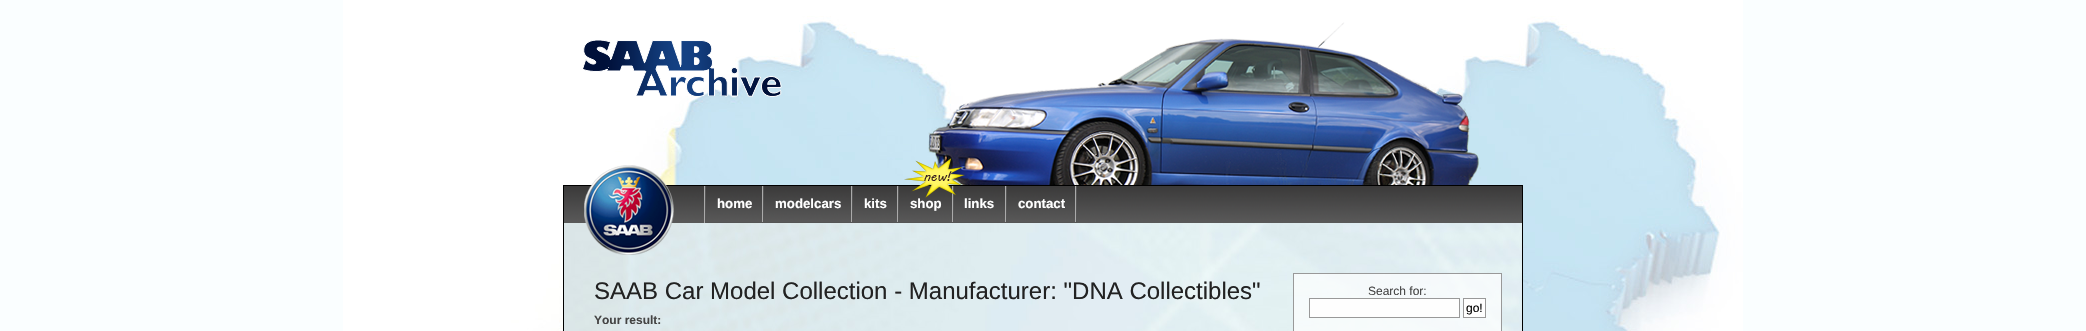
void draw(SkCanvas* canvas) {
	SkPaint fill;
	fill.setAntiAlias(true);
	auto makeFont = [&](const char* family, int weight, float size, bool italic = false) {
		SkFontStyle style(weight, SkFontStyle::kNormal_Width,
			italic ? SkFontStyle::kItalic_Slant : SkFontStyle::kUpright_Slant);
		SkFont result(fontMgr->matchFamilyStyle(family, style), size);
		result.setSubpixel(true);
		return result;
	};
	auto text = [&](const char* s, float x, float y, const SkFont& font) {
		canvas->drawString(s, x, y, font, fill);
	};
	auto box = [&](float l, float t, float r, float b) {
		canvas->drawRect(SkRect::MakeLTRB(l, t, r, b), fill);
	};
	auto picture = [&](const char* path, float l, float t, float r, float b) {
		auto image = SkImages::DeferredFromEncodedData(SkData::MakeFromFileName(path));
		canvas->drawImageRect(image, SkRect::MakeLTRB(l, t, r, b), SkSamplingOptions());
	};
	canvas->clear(0xFFFAFEFF);
	picture("image0.png", 343, 0, 1743, 331);
	picture("image1.png", 928, 22, 1481, 185);
	picture("image2.png", 583, 40, 782, 97);
	picture("image3.png", 564, 186, 1522, 223);
	fill.setColor(0xFF000000);
	box(563, 185, 1523, 186);
	box(1522, 185, 1523, 223);
	box(563, 185, 564, 223);
	fill.setColor(0xFF555555);
	box(1076, 186, 1077, 223);
	box(704, 222, 1077, 223);
	fill.setColor(0xFFAAAAAA);
	box(704, 186, 705, 223);
	box(762, 186, 763, 222);
	fill.setColor(0xFF555555);
	box(705, 186, 706, 222);
	fill.setColor(0xFFAAAAAA);
	box(851, 186, 852, 222);
	fill.setColor(0xFF555555);
	box(763, 186, 764, 222);
	fill.setColor(0xFFAAAAAA);
	box(897, 186, 898, 222);
	fill.setColor(0xFF555555);
	box(852, 186, 853, 222);
	fill.setColor(0xFFAAAAAA);
	box(952, 186, 953, 222);
	fill.setColor(0xFF555555);
	box(898, 186, 899, 222);
	fill.setColor(0xFFAAAAAA);
	box(1005, 186, 1006, 222);
	fill.setColor(0xFF555555);
	box(953, 186, 954, 222);
	fill.setColor(0xFFAAAAAA);
	box(1075, 186, 1076, 222);
	fill.setColor(0xFF555555);
	box(1006, 186, 1007, 222);
	picture("image4.png", 564, 223, 1522, 331);
	fill.setColor(0xFF000000);
	box(1522, 223, 1523, 331);
	box(563, 223, 564, 331);
	picture("image5.png", 584, 165, 674, 255);
	picture("image6.png", 904, 158, 965, 198);
	picture("image7.png", 1294, 274, 1501, 331);
	fill.setStyle(SkPaint::kStroke_Style);
	fill.setStrokeWidth(1);
	fill.setColor(0xFF999999);
	canvas->drawRect(SkRect::MakeLTRB(1293.5f, 273.5f, 1501.5f, 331.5f), fill);
	fill.setStyle(SkPaint::kFill_Style);
	fill.setColor(0xFFFEFEFE);
	canvas->drawRect(SkRect::MakeLTRB(1309.5f, 298.5f, 1459.5f, 317.5f), fill);
	fill.setStyle(SkPaint::kStroke_Style);
	fill.setColor(0xFF999999);
	canvas->drawRect(SkRect::MakeLTRB(1309.5f, 298.5f, 1459.5f, 317.5f), fill);
	fill.setStyle(SkPaint::kFill_Style);
	fill.setColor(0xFFFEFEFE);
	canvas->drawRect(SkRect::MakeLTRB(1463.5f, 298.5f, 1485.5f, 317.5f), fill);
	fill.setStyle(SkPaint::kStroke_Style);
	fill.setColor(0xFF999999);
	canvas->drawRect(SkRect::MakeLTRB(1463.5f, 298.5f, 1485.5f, 317.5f), fill);
	auto font1 = makeFont("Liberation Sans", 700, 13.25f);
	fill.setStyle(SkPaint::kFill_Style);
	fill.setColor(0xFFFFFFFF);
	text("home", 717, 208, font1);
	text("modelcars", 775, 208, font1);
	text("kits", 864, 208, font1);
	text("shop", 910, 208, font1);
	text("links", 964, 208, font1);
	text("contact", 1018, 208, font1);
	auto font2 = makeFont("Liberation Sans", 400, 24);
	fill.setColor(0xFF222222);
	text("SAAB Car Model Collection - Manufacturer: \"DNA Collectibles\"", 594, 299, font2);
	auto font3 = makeFont("Liberation Sans", 700, 12);
	fill.setColor(0xFF444444);
	text("Your result:", 594, 324, font3);
	auto font4 = makeFont("Liberation Sans", 400, 12);
	text("Search for:", 1368, 295, font4);
	fill.setColor(0xFF000000);
	text("go!", 1466, 312, font4);
}
